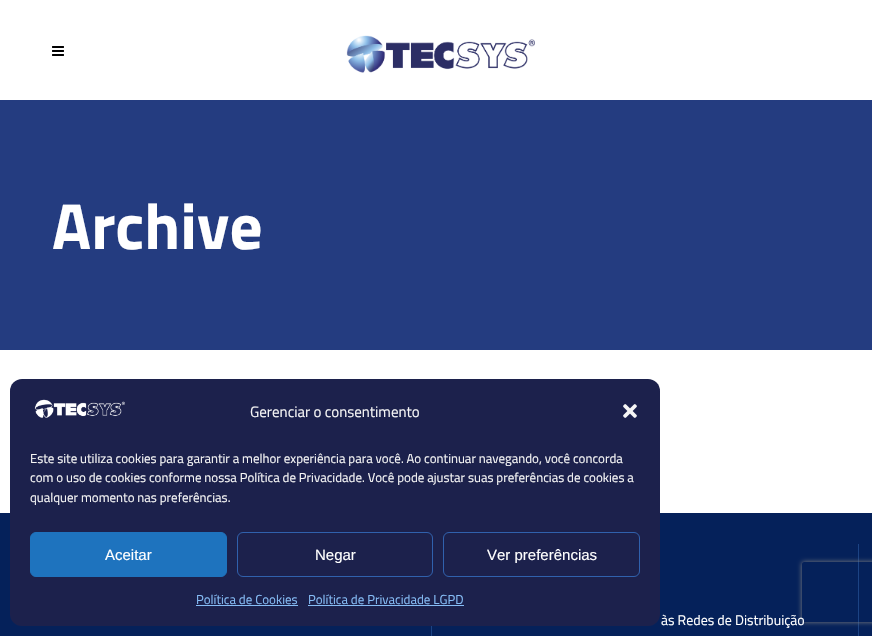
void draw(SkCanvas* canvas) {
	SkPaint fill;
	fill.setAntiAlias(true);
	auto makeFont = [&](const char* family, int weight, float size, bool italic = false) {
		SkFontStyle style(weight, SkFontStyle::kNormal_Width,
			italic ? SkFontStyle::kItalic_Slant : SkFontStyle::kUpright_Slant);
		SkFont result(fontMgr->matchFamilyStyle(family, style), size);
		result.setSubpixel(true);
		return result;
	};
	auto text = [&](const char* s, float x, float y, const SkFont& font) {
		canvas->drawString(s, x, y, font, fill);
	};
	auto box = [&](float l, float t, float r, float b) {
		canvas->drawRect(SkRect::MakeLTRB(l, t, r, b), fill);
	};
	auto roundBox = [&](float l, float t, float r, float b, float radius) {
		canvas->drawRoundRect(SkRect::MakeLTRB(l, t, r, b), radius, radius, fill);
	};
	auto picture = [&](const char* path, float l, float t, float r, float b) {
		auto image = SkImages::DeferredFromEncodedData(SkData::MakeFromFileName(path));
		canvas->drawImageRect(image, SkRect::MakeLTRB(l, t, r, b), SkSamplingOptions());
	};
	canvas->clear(0xFFFFFFFF);
	picture("image0.png", 52, 46, 64, 56);
	picture("image1.png", 346, 35, 535, 73);
	fill.setColor(0xFF243C80);
	box(0, 100, 872, 350);
	fill.setColor(0xFF05215A);
	box(0, 513, 872, 636);
	fill.setColor(0xFF1C4384);
	box(858, 544, 859, 636);
	box(431, 626, 432, 636);
	fill.setColor(0xFF1C214C);
	roundBox(10, 379, 660, 626, 12);
	picture("image2.png", 34, 399, 125, 418);
	picture("image3.png", 623, 404, 637, 418);
	fill.setColor(0xFF1E73BE);
	canvas->drawRoundRect(SkRect::MakeLTRB(30.5f, 532.5f, 226.5f, 576.5f), 5.5f, 5.5f, fill);
	fill.setStyle(SkPaint::kStroke_Style);
	fill.setStrokeWidth(1);
	canvas->drawRoundRect(SkRect::MakeLTRB(30.5f, 532.5f, 226.5f, 576.5f), 5.5f, 5.5f, fill);
	fill.setColor(0xFF3061AD);
	canvas->drawRoundRect(SkRect::MakeLTRB(237.5f, 532.5f, 432.5f, 576.5f), 5.5f, 5.5f, fill);
	canvas->drawRoundRect(SkRect::MakeLTRB(443.5f, 532.5f, 639.5f, 576.5f), 5.5f, 5.5f, fill);
	fill.setStyle(SkPaint::kFill_Style);
	fill.setColor(0xFF86BDF6);
	box(196, 605, 298, 606);
	box(308, 605, 464, 606);
	canvas->save();
	canvas->clipPath(SkPathBuilder(SkPathFillType::kEvenOdd).moveTo(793, 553).lineTo(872, 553).lineTo(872, 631).lineTo(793, 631).close().moveTo(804, 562).lineTo(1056, 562).cubicTo(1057, 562, 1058, 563, 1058, 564).lineTo(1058, 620).cubicTo(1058, 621, 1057, 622, 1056, 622).lineTo(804, 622).cubicTo(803, 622, 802, 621, 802, 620).lineTo(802, 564).cubicTo(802, 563, 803, 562, 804, 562).close().detach(), true);
	fill.setColor(0xFF808080);
	fill.setMaskFilter(SkMaskFilter::MakeBlur(kNormal_SkBlurStyle, 2.5f));
	canvas->drawRoundRect(SkRect::MakeLTRB(802, 562, 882, 622), 2, 2, fill);
	fill.setMaskFilter(nullptr);
	canvas->restore();
	auto font1 = makeFont("Titillium Web", 700, 65);
	fill.setColor(0xFFFFFFFF);
	text("Archive", 52, 249, font1);
	auto font2 = makeFont("Titillium Web", 400, 14);
	text("às Redes de Distribuição", 661, 625, font2);
	auto font3 = makeFont("Titillium Web", 400, 15);
	fill.setColor(0xFFF6F6F6);
	text("Gerenciar o consentimento", 250, 417, font3);
	auto font4 = makeFont("Titillium Web", 400, 13);
	text("Este site utiliza cookies para garantir a melhor experiência para você. Ao continuar navegando, você concorda", 30, 463, font4);
	text("com o uso de cookies conforme nossa Política de Privacidade. Você pode ajustar suas preferências de cookies a", 30, 482, font4);
	text("qualquer momento nas preferências.", 30, 502, font4);
	auto font5 = makeFont("Liberation Sans", 400, 15);
	fill.setColor(0xFFFFFFFF);
	text("Aceitar", 105, 560, font5);
	text("Negar", 315, 560, font5);
	text("Ver preferências", 487, 560, font5);
	fill.setColor(0xFF86BDF6);
	text("Política de Cookies", 196, 604, font4);
	text("Política de Privacidade LGPD", 308, 604, font4);
}
